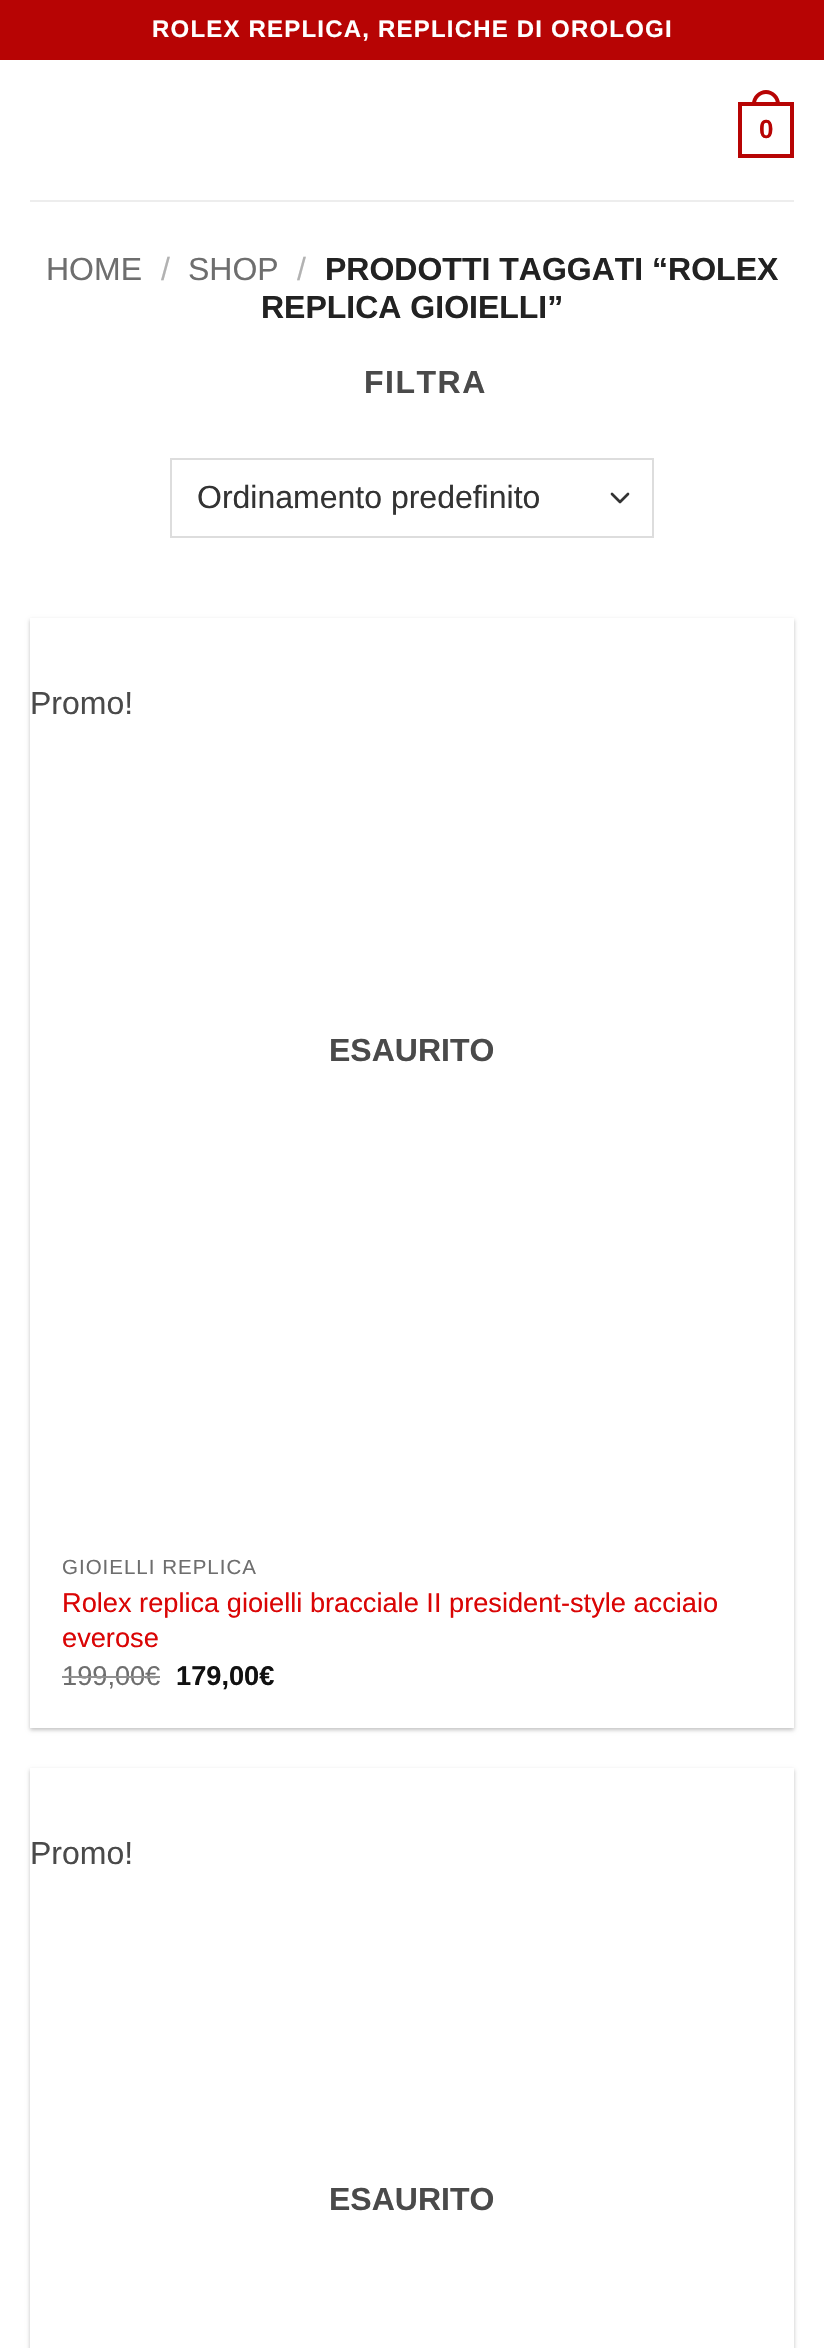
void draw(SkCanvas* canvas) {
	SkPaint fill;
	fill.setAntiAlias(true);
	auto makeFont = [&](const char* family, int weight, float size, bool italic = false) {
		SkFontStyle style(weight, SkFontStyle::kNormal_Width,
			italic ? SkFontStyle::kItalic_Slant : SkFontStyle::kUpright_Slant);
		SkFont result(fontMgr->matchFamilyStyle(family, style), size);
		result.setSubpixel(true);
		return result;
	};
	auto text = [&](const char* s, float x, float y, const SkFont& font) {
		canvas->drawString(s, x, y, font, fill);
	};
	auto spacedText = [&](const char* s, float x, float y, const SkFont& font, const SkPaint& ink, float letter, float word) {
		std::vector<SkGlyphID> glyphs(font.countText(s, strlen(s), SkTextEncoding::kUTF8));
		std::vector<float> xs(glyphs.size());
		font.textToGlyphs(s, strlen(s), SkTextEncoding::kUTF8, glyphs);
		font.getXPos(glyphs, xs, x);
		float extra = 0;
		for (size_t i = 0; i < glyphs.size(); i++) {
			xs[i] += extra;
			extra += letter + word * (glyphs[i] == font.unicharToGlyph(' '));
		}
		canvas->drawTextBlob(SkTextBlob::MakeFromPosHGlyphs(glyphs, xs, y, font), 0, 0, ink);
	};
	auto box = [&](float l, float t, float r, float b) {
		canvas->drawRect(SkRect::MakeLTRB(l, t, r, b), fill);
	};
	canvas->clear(0xFFFFFFFF);
	fill.setColor(0xFFB70404);
	box(0, 0, 824, 60);
	fill.setStyle(SkPaint::kStroke_Style);
	fill.setStrokeWidth(4);
	canvas->drawRect(SkRect::MakeLTRB(740, 104, 792, 156), fill);
	fill.setStyle(SkPaint::kFill_Style);
	canvas->drawPath(SkPathBuilder(SkPathFillType::kEvenOdd).moveTo(766, 90).cubicTo(773.5f, 90, 780, 96.5f, 780, 104).lineTo(780, 106).lineTo(752, 106).lineTo(752, 104).cubicTo(752, 96.5f, 758.5f, 90, 766, 90).close().moveTo(766, 94).cubicTo(771.5f, 94, 776, 98.5f, 776, 104).lineTo(776, 106).lineTo(756, 106).lineTo(756, 104).cubicTo(756, 98.5f, 760.5f, 94, 766, 94).close().detach(), fill);
	fill.setColor(0xFFEDEDED);
	box(30, 200, 794, 202);
	fill.setStyle(SkPaint::kStroke_Style);
	fill.setStrokeWidth(2.7f);
	fill.setStrokeCap(SkPaint::kRound_Cap);
	fill.setStrokeJoin(SkPaint::kRound_Join);
	fill.setColor(0xFF333333);
	canvas->drawPath(SkPathBuilder().moveTo(612, 494).lineTo(620, 502).lineTo(628, 494).detach(), fill);
	fill.setStrokeWidth(2);
	fill.setStrokeCap(SkPaint::kButt_Cap);
	fill.setStrokeJoin(SkPaint::kMiter_Join);
	fill.setColor(0xFFDDDDDD);
	canvas->drawRect(SkRect::MakeLTRB(171, 459, 653, 537), fill);
	canvas->save();
	canvas->clipPath(SkPathBuilder(SkPathFillType::kEvenOdd).moveTo(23, 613).lineTo(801, 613).lineTo(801, 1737).lineTo(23, 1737).close().moveTo(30, 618).lineTo(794, 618).lineTo(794, 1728).lineTo(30, 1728).close().detach(), true);
	fill.setStyle(SkPaint::kFill_Style);
	fill.setColor(0x3D000000);
	fill.setMaskFilter(SkMaskFilter::MakeBlur(kNormal_SkBlurStyle, 2));
	canvas->drawRect(SkRect::MakeLTRB(30, 620, 794, 1730), fill);
	fill.setMaskFilter(nullptr);
	canvas->restore();
	canvas->save();
	canvas->clipPath(SkPathBuilder(SkPathFillType::kEvenOdd).moveTo(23, 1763).lineTo(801, 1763).lineTo(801, 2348).lineTo(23, 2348).close().moveTo(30, 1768).lineTo(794, 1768).lineTo(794, 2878).lineTo(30, 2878).close().detach(), true);
	fill.setMaskFilter(SkMaskFilter::MakeBlur(kNormal_SkBlurStyle, 2));
	canvas->drawRect(SkRect::MakeLTRB(30, 1770, 794, 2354), fill);
	fill.setMaskFilter(nullptr);
	canvas->restore();
	auto font1 = makeFont("Liberation Sans", 700, 24);
	fill.setColor(0xFFFFFFFF);
	spacedText("ROLEX REPLICA, REPLICHE DI OROLOGI", 152, 37, font1, fill, 1.2f, 0);
	auto font2 = makeFont("Liberation Sans", 700, 26);
	fill.setColor(0xFFB70404);
	text("0", 759, 138, font2);
	auto font3 = makeFont("Liberation Sans", 400, 32);
	fill.setColor(0xFF6E6E6E);
	text("HOME", 46, 280, font3);
	fill.setColor(0xFFB2B2B2);
	text("/", 161, 280, font3);
	fill.setColor(0xFF6E6E6E);
	text("SHOP", 188, 280, font3);
	fill.setColor(0xFFB2B2B2);
	text("/", 297, 280, font3);
	auto font4 = makeFont("Liberation Sans", 700, 32);
	fill.setColor(0xFF222222);
	text("PRODOTTI TAGGATI “ROLEX", 325, 280, font4);
	text("REPLICA GIOIELLI”", 261, 318, font4);
	fill.setColor(0xFF4A4A4A);
	spacedText("FILTRA", 364, 393, font4, fill, 1.5f, 0);
	fill.setColor(0xFF333333);
	text("Ordinamento predefinito", 197, 508, font3);
	fill.setColor(0xFF4A4A4A);
	text("Promo!", 30, 714, font3);
	text("ESAURITO", 329, 1061, font4);
	auto font5 = makeFont("Liberation Sans", 400, 20.5f);
	fill.setColor(0xFF6E6E6E);
	spacedText("GIOIELLI REPLICA", 62, 1574, font5, fill, 1, 0);
	auto font6 = makeFont("Liberation Sans", 400, 27.2f);
	fill.setColor(0xFFDA0505);
	text("Rolex replica gioielli bracciale II president-style acciaio", 62, 1612, font6);
	text("everose", 62, 1647, font6);
	fill.setColor(0xFF6E6E6E);
	text("199,00", 62, 1685, font6);
	fill.setColor(0xFF929292);
	box(62, 1676, 146, 1678);
	fill.setColor(0xFF6E6E6E);
	text("€", 145, 1685, font6);
	fill.setColor(0xFF929292);
	box(146, 1676, 160, 1678);
	auto font7 = makeFont("Liberation Sans", 700, 27.2f);
	fill.setColor(0xFF111111);
	text("179,00€", 176, 1685, font7);
	fill.setColor(0xFF4A4A4A);
	text("Promo!", 30, 1864, font3);
	text("ESAURITO", 329, 2210, font4);
}
